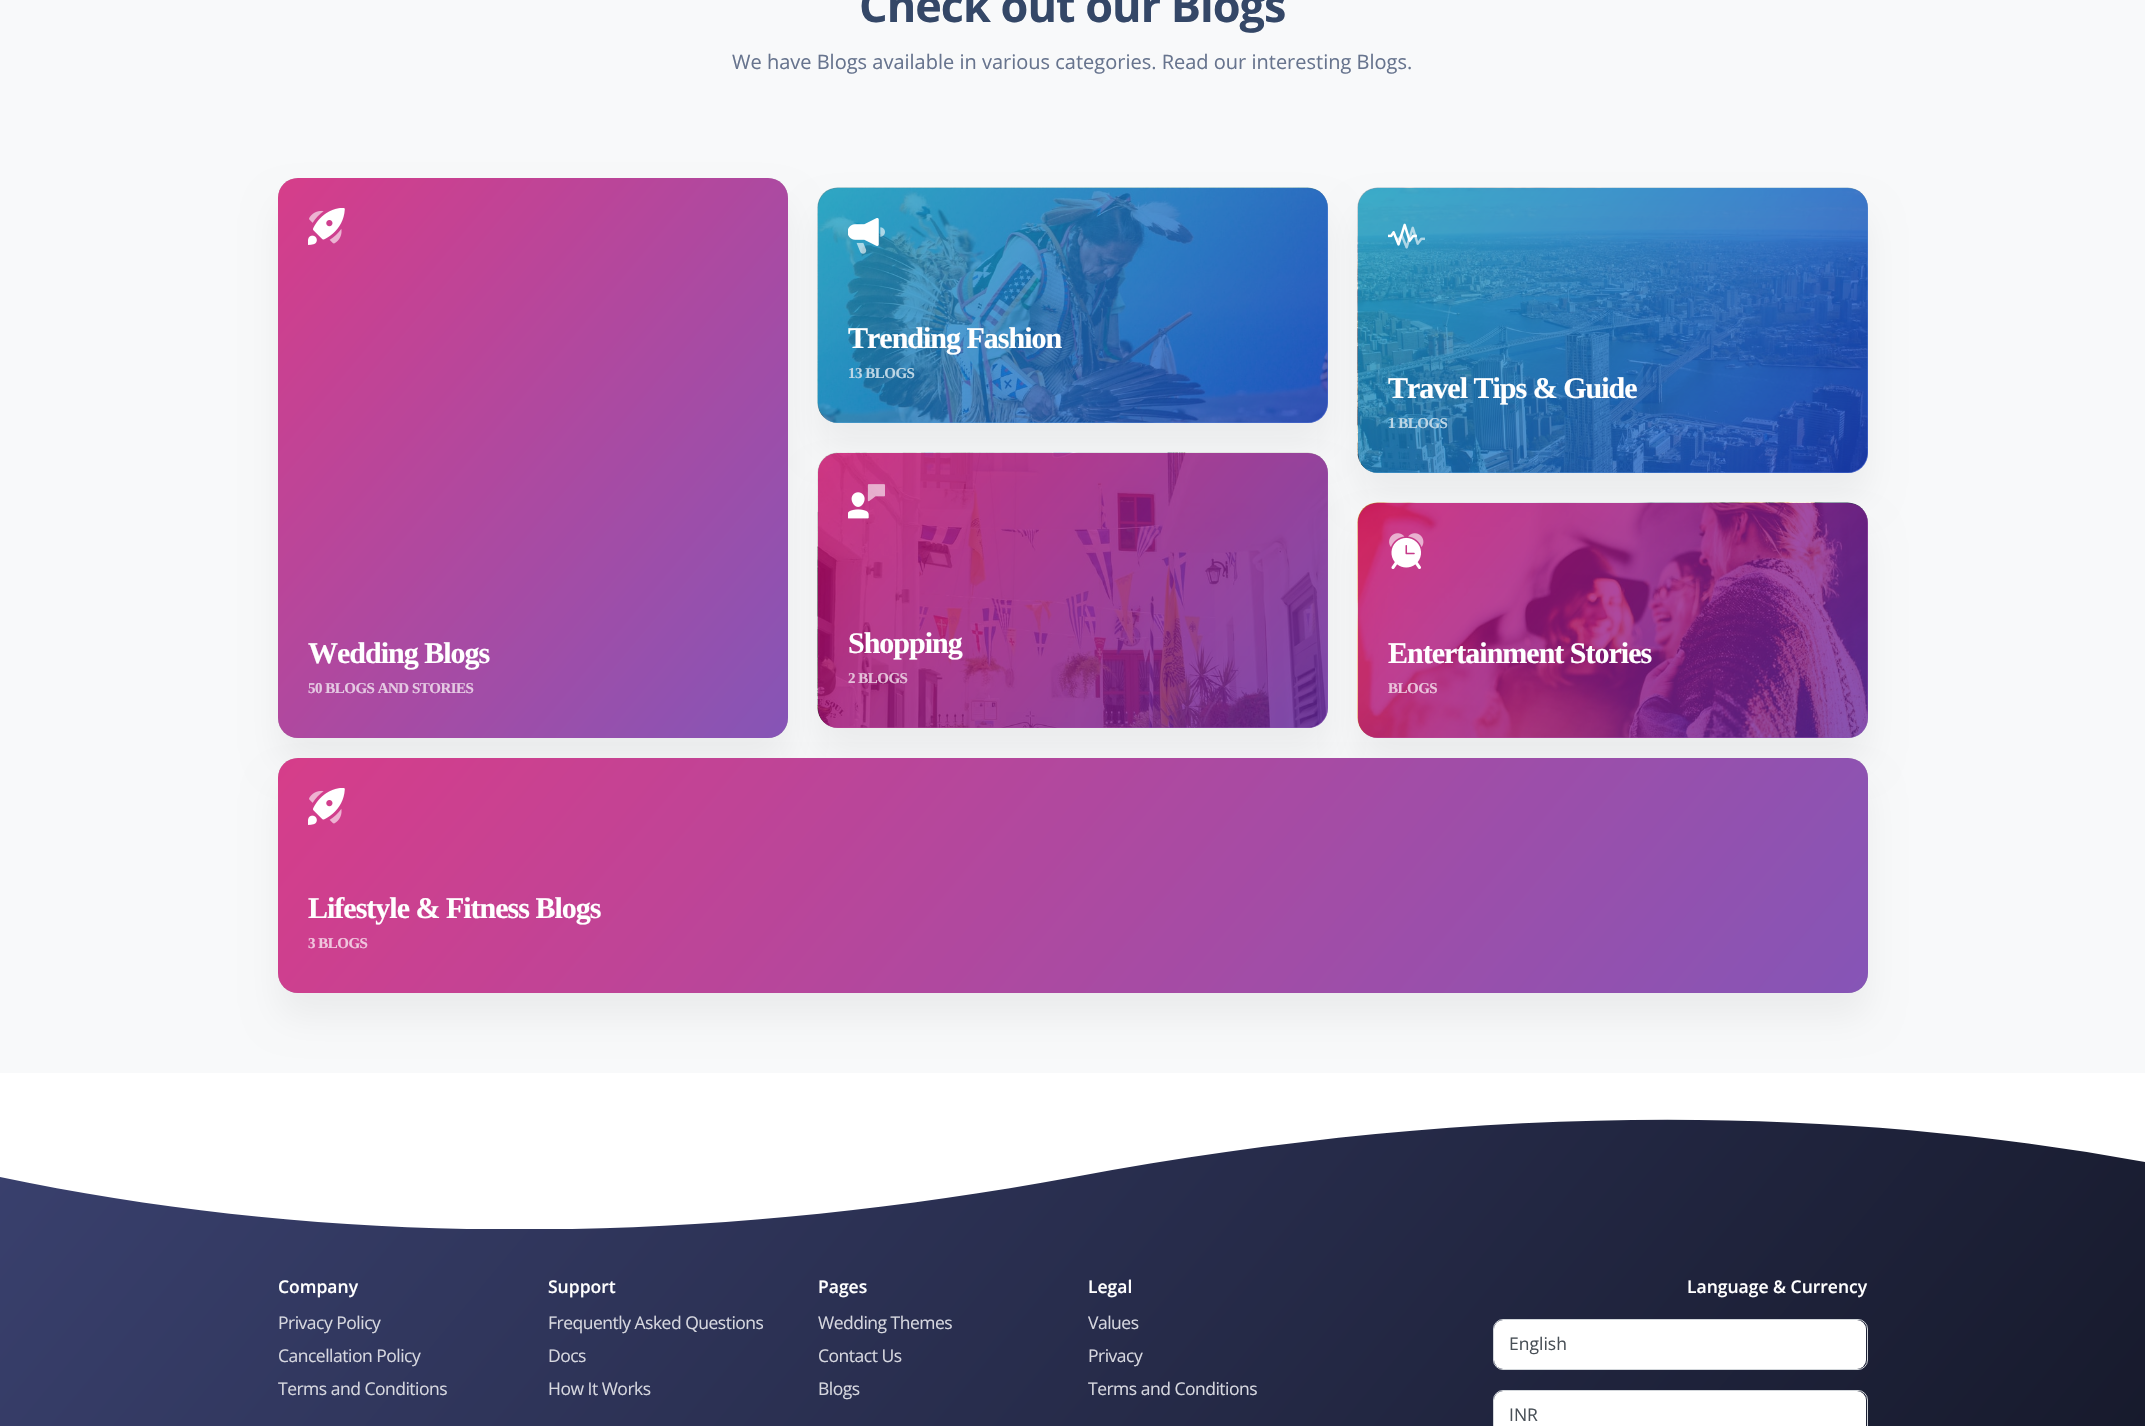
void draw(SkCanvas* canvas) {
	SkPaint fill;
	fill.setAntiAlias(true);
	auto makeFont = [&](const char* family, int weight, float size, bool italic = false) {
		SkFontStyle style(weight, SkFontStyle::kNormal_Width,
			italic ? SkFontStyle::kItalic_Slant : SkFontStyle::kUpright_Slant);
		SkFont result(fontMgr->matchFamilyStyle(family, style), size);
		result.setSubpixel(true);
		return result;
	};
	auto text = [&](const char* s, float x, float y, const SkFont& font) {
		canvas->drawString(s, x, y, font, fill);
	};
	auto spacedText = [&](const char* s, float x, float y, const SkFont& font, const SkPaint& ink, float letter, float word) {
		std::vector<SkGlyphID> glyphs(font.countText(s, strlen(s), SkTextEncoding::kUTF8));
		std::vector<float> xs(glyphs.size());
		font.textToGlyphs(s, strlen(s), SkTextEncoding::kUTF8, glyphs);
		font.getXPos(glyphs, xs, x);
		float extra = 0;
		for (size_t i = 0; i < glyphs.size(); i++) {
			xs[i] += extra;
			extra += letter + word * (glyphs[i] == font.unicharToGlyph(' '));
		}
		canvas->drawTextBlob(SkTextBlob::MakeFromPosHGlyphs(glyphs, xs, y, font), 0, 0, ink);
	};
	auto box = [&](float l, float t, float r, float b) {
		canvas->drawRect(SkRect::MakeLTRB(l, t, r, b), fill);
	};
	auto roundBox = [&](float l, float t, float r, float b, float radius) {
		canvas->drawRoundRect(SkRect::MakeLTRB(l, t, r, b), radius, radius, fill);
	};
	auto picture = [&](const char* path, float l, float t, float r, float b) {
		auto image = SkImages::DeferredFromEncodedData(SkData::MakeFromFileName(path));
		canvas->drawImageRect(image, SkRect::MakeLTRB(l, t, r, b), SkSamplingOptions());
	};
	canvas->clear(0xFFF8F9FA);
	fill.setColor(0x0D000000);
	fill.setMaskFilter(SkMaskFilter::MakeBlur(kNormal_SkBlurStyle, 17));
	canvas->drawRoundRect(SkRect::MakeLTRB(278, 203, 788, 763), 20, 20, fill);
	fill.setMaskFilter(nullptr);
	fill.setColor(0xFFFFFFFF);
	roundBox(278, 178, 788, 738, 20);
	fill.setColor(0x0D000000);
	fill.setMaskFilter(SkMaskFilter::MakeBlur(kNormal_SkBlurStyle, 17));
	canvas->drawRoundRect(SkRect::MakeLTRB(818, 213, 1328, 448), 20, 20, fill);
	fill.setMaskFilter(nullptr);
	fill.setMaskFilter(SkMaskFilter::MakeBlur(kNormal_SkBlurStyle, 17));
	canvas->drawRoundRect(SkRect::MakeLTRB(818, 478, 1328, 753), 20, 20, fill);
	fill.setMaskFilter(nullptr);
	fill.setColor(0xFFFFFFFF);
	roundBox(818, 188, 1328, 423, 20);
	picture("image1.png", 817, 187, 1328, 423);
	roundBox(818, 453, 1328, 728, 20);
	picture("image3.png", 817, 452, 1328, 728);
	fill.setColor(0x0D000000);
	fill.setMaskFilter(SkMaskFilter::MakeBlur(kNormal_SkBlurStyle, 17));
	canvas->drawRoundRect(SkRect::MakeLTRB(1358, 213, 1868, 498), 20, 20, fill);
	fill.setMaskFilter(nullptr);
	fill.setMaskFilter(SkMaskFilter::MakeBlur(kNormal_SkBlurStyle, 17));
	canvas->drawRoundRect(SkRect::MakeLTRB(1358, 528, 1868, 763), 20, 20, fill);
	fill.setMaskFilter(nullptr);
	fill.setColor(0xFFFFFFFF);
	roundBox(1358, 503, 1868, 738, 20);
	picture("image7.png", 1357, 502, 1868, 738);
	fill.setColor(0x0D000000);
	fill.setMaskFilter(SkMaskFilter::MakeBlur(kNormal_SkBlurStyle, 17));
	canvas->drawRoundRect(SkRect::MakeLTRB(278, 783, 1868, 1018), 20, 20, fill);
	fill.setMaskFilter(nullptr);
	fill.setColor(0x66000000);
	roundBox(278, 178, 788, 738, 20);
	{
		const SkColor colors[] = {0x997928CA, 0x99FF0080};
		const float stops[] = {0, 1};
		const SkPoint ends[] = {{820, 699}, {245, 216}};
		fill.setShader(SkGradientShader::MakeLinear(ends, colors, stops, 2, SkTileMode::kClamp));
		fill.setAlpha(255);
	}
	roundBox(278, 178, 788, 738, 20);
	picture("image0.png", 308, 208, 345, 245);
	fill.setShader(nullptr);
	fill.setColor(0x66000000);
	roundBox(818, 188, 1328, 423, 20);
	{
		const SkColor colors[] = {0x992152FF, 0x9921D4FD};
		const float stops[] = {0, 1};
		const SkPoint ends[] = {{1280, 479}, {865, 131}};
		fill.setShader(SkGradientShader::MakeLinear(ends, colors, stops, 2, SkTileMode::kClamp));
		fill.setAlpha(255);
	}
	roundBox(818, 188, 1328, 423, 20);
	picture("image2.png", 848, 218, 885, 254);
	fill.setShader(nullptr);
	fill.setColor(0x66000000);
	roundBox(818, 453, 1328, 728, 20);
	{
		const SkColor colors[] = {0x997928CA, 0x99FF0080};
		const float stops[] = {0, 1};
		const SkPoint ends[] = {{1290, 772}, {855, 408}};
		fill.setShader(SkGradientShader::MakeLinear(ends, colors, stops, 2, SkTileMode::kClamp));
		fill.setAlpha(255);
	}
	roundBox(818, 453, 1328, 728, 20);
	picture("image4.png", 848, 484, 885, 519);
	fill.setShader(nullptr);
	fill.setColor(0xFFFFFFFF);
	roundBox(1358, 188, 1868, 473, 20);
	picture("image5.png", 1357, 187, 1868, 473);
	fill.setColor(0x66000000);
	roundBox(1358, 188, 1868, 473, 20);
	{
		const SkColor colors[] = {0x992152FF, 0x9921D4FD};
		const float stops[] = {0, 1};
		const SkPoint ends[] = {{1832, 514}, {1393, 146}};
		fill.setShader(SkGradientShader::MakeLinear(ends, colors, stops, 2, SkTileMode::kClamp));
		fill.setAlpha(255);
	}
	roundBox(1358, 188, 1868, 473, 20);
	picture("image6.png", 1388, 223, 1425, 249);
	fill.setShader(nullptr);
	fill.setColor(0x66000000);
	roundBox(1358, 503, 1868, 738, 20);
	{
		const SkColor colors[] = {0x997928CA, 0x99FF0080};
		const float stops[] = {0, 1};
		const SkPoint ends[] = {{1820, 794}, {1405, 446}};
		fill.setShader(SkGradientShader::MakeLinear(ends, colors, stops, 2, SkTileMode::kClamp));
		fill.setAlpha(255);
	}
	roundBox(1358, 503, 1868, 738, 20);
	picture("image8.png", 1389, 533, 1424, 569);
	fill.setShader(nullptr);
	fill.setColor(0xFFFFFFFF);
	roundBox(278, 758, 1868, 993, 20);
	fill.setColor(0x66000000);
	roundBox(278, 758, 1868, 993, 20);
	{
		const SkColor colors[] = {0x997928CA, 0x99FF0080};
		const float stops[] = {0, 1};
		const SkPoint ends[] = {{1597, 1315}, {548, 435}};
		fill.setShader(SkGradientShader::MakeLinear(ends, colors, stops, 2, SkTileMode::kClamp));
		fill.setAlpha(255);
	}
	roundBox(278, 758, 1868, 993, 20);
	picture("image9.png", 308, 788, 345, 825);
	{
		const SkColor colors[] = {0xFF141727, 0xFF3A416F};
		const float stops[] = {0, 1};
		const SkPoint ends[] = {{1849, 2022}, {296, 719}};
		fill.setShader(SkGradientShader::MakeLinear(ends, colors, stops, 2, SkTileMode::kClamp));
		fill.setAlpha(255);
	}
	box(0, 1119, 2145, 1426);
	canvas->save();
	canvas->clipRect(SkRect::MakeLTRB(0, 1073, 2145, 1229));
	fill.setShader(nullptr);
	fill.setColor(0xFFFFFFFF);
	canvas->drawPath(SkPathBuilder().moveTo(2145, 1162).cubicTo(1811, 1101, 1454, 1106, 1074, 1177).cubicTo(693, 1247, 334, 1247, 0, 1177).lineTo(0, 1055).lineTo(2145, 1055).close().detach(), fill);
	canvas->restore();
	roundBox(1494, 1320, 1866, 1369, 9);
	fill.setStyle(SkPaint::kStroke_Style);
	fill.setStrokeWidth(1);
	fill.setColor(0xFFD2D6DA);
	canvas->drawRoundRect(SkRect::MakeLTRB(1493.5f, 1319.5f, 1867.5f, 1369.5f), 9.5f, 9.5f, fill);
	fill.setStyle(SkPaint::kFill_Style);
	fill.setColor(0xFFFFFFFF);
	roundBox(1494, 1391, 1866, 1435, 9);
	fill.setStyle(SkPaint::kStroke_Style);
	fill.setColor(0xFFD2D6DA);
	canvas->drawRoundRect(SkRect::MakeLTRB(1493.5f, 1390.5f, 1867.5f, 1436.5f), 9.5f, 9.5f, fill);
	auto font1 = makeFont("Open Sans", 700, 45);
	fill.setStyle(SkPaint::kFill_Style);
	fill.setColor(0xFF344767);
	spacedText("Check out our Blogs", 859, 22, font1, fill, -1, 0);
	auto font2 = makeFont("Open Sans", 400, 20);
	fill.setColor(0xFF67748E);
	text("We have Blogs available in various categories. Read our interesting Blogs.", 732, 69, font2);
	auto font3 = makeFont("Liberation Serif", 700, 30);
	fill.setColor(0xFFFFFFFF);
	spacedText("Wedding Blogs", 308, 663, font3, fill, -1, 0);
	auto font4 = makeFont("Liberation Serif", 700, 15);
	fill.setColor(0xFFE5C9E3);
	spacedText("50 BLOGS AND STORIES", 308, 693, font4, fill, -0.5f, 0);
	fill.setColor(0xFFFFFFFF);
	spacedText("Trending Fashion", 848, 348, font3, fill, -1, 0);
	fill.setColor(0xFFBDD6E5);
	spacedText("13 BLOGS", 848, 378, font4, fill, -0.5f, 0);
	fill.setColor(0xFFFFFFFF);
	spacedText("Shopping", 848, 653, font3, fill, -1, 0);
	fill.setColor(0xFFE4C0D9);
	spacedText("2 BLOGS", 848, 683, font4, fill, -0.5f, 0);
	fill.setColor(0xFFFFFFFF);
	spacedText("Travel Tips & Guide", 1388, 398, font3, fill, -1, 0);
	fill.setColor(0xFFBDD6E5);
	spacedText("1 BLOGS", 1388, 428, font4, fill, -0.5f, 0);
	fill.setColor(0xFFFFFFFF);
	spacedText("Entertainment Stories", 1388, 663, font3, fill, -1, 0);
	fill.setColor(0xFFEAC3DB);
	spacedText("BLOGS", 1388, 693, font4, fill, -0.5f, 0);
	fill.setColor(0xFFFFFFFF);
	spacedText("Lifestyle & Fitness Blogs", 308, 918, font3, fill, -1, 0);
	fill.setColor(0xFFF0C6DE);
	spacedText("3 BLOGS", 308, 948, font4, fill, -0.5f, 0);
	auto font5 = makeFont("Open Sans", 600, 17.5f);
	fill.setColor(0xFFFFFFFF);
	text("Company", 278, 1293, font5);
	auto font6 = makeFont("Open Sans", 400, 17.5f);
	fill.setColor(0xFFD6D7DF);
	spacedText("Privacy Policy", 278, 1329, font6, fill, -0.5f, 0);
	spacedText("Cancellation Policy", 278, 1362, font6, fill, -0.5f, 0);
	spacedText("Terms and Conditions", 278, 1395, font6, fill, -0.5f, 0);
	fill.setColor(0xFFFFFFFF);
	text("Support", 548, 1293, font5);
	fill.setColor(0xFFD6D7DF);
	spacedText("Frequently Asked Questions", 548, 1329, font6, fill, -0.5f, 0);
	spacedText("Docs", 548, 1362, font6, fill, -0.5f, 0);
	spacedText("How It Works", 548, 1395, font6, fill, -0.5f, 0);
	fill.setColor(0xFFFFFFFF);
	text("Pages", 818, 1293, font5);
	fill.setColor(0xFFD6D7DF);
	spacedText("Wedding Themes", 818, 1329, font6, fill, -0.5f, 0);
	spacedText("Contact Us", 818, 1362, font6, fill, -0.5f, 0);
	spacedText("Blogs", 818, 1395, font6, fill, -0.5f, 0);
	fill.setColor(0xFFFFFFFF);
	text("Legal", 1088, 1293, font5);
	fill.setColor(0xFFD6D7DF);
	spacedText("Values", 1088, 1329, font6, fill, -0.5f, 0);
	spacedText("Privacy", 1088, 1362, font6, fill, -0.5f, 0);
	spacedText("Terms and Conditions", 1088, 1395, font6, fill, -0.5f, 0);
	fill.setColor(0xFFFFFFFF);
	text("Language & Currency", 1687, 1293, font5);
	fill.setColor(0xFF495057);
	text("English", 1509, 1350, font6);
	text("INR", 1509, 1421, font6);
}
